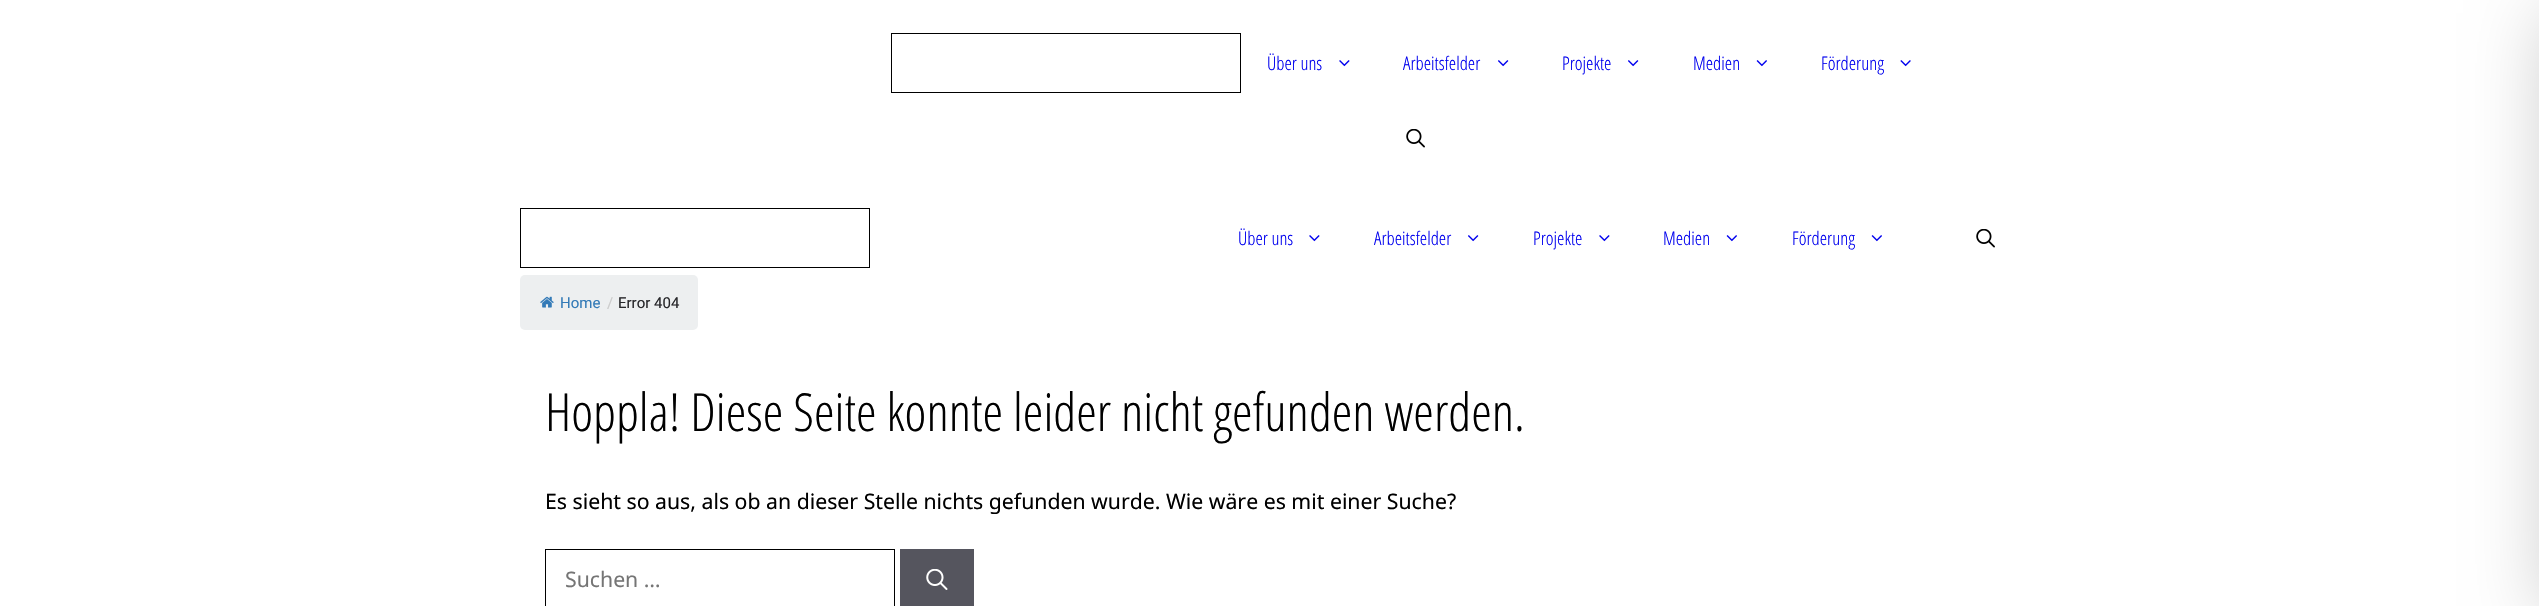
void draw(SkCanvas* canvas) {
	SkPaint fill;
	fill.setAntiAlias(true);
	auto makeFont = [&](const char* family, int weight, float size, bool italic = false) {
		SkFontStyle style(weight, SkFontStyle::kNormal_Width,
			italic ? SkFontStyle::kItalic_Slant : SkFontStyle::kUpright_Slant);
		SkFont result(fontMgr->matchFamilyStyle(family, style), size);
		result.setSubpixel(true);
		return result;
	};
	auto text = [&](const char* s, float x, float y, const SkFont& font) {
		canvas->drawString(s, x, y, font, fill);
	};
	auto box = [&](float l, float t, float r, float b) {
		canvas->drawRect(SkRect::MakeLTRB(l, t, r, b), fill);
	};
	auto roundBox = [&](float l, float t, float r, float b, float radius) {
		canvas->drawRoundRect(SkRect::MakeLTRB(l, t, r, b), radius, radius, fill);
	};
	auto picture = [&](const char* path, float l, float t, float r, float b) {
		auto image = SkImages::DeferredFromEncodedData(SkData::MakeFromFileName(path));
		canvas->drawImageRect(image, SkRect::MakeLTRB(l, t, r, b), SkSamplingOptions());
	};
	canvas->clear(0xFFFFFFFF);
	fill.setStyle(SkPaint::kStroke_Style);
	fill.setStrokeWidth(1);
	fill.setColor(0xFF000000);
	canvas->drawRect(SkRect::MakeLTRB(891.5f, 33.5f, 1240.5f, 92.5f), fill);
	picture("image0.png", 1339, 60, 1350, 67);
	picture("image1.png", 1498, 60, 1509, 67);
	picture("image1.png", 1628, 60, 1639, 67);
	picture("image2.png", 1756, 60, 1767, 67);
	picture("image3.png", 1900, 60, 1911, 67);
	picture("image4.png", 1406, 129, 1425, 148);
	fill.setStyle(SkPaint::kFill_Style);
	fill.setColor(0x33000000);
	fill.setMaskFilter(SkMaskFilter::MakeBlur(kNormal_SkBlurStyle, 37.5f));
	canvas->drawRect(SkRect::MakeLTRB(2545, 13, 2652, 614), fill);
	fill.setMaskFilter(nullptr);
	fill.setStyle(SkPaint::kStroke_Style);
	fill.setColor(0xFF000000);
	canvas->drawRect(SkRect::MakeLTRB(520.5f, 208.5f, 869.5f, 267.5f), fill);
	picture("image0.png", 1309, 235, 1320, 242);
	picture("image1.png", 1468, 235, 1479, 242);
	picture("image0.png", 1599, 235, 1610, 242);
	picture("image2.png", 1726, 235, 1737, 242);
	picture("image2.png", 1871, 235, 1882, 242);
	picture("image4.png", 1976, 229, 1995, 248);
	fill.setStyle(SkPaint::kFill_Style);
	fill.setColor(0xFFEDEFF0);
	roundBox(520, 275, 698, 330, 5);
	picture("image5.png", 540, 296, 554, 308);
	fill.setStyle(SkPaint::kStroke_Style);
	fill.setColor(0xFF000000);
	canvas->drawRect(SkRect::MakeLTRB(545.5f, 549.5f, 894.5f, 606.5f), fill);
	fill.setStyle(SkPaint::kFill_Style);
	fill.setColor(0xFF55555E);
	box(900, 549, 974, 606);
	picture("image6.png", 926, 569, 948, 590);
	auto font1 = makeFont("Open Sans", 300, 18.75f);
	fill.setColor(0xFF0000EE);
	text("Über uns", 1267, 70, font1);
	text("Arbeitsfelder", 1403, 70, font1);
	text("Projekte", 1562, 70, font1);
	text("Medien", 1693, 70, font1);
	text("Förderung", 1821, 70, font1);
	text("Über uns", 1238, 245, font1);
	text("Arbeitsfelder", 1374, 245, font1);
	text("Projekte", 1533, 245, font1);
	text("Medien", 1663, 245, font1);
	text("Förderung", 1792, 245, font1);
	auto font2 = makeFont("Roboto", 400, 15);
	fill.setColor(0xFF337AB7);
	text("Home", 560, 308, font2);
	fill.setColor(0xFFCCCCCC);
	text("/", 607, 308, font2);
	fill.setColor(0xFF27272A);
	text("Error 404", 618, 308, font2);
	auto font3 = makeFont("Open Sans", 300, 52.5f);
	fill.setColor(0xFF000000);
	text("Hoppla! Diese Seite konnte leider nicht gefunden werden.", 545, 431, font3);
	auto font4 = makeFont("Noto Sans", 400, 21.25f);
	text("Es sieht so aus, als ob an dieser Stelle nichts gefunden wurde. Wie wäre es mit einer Suche?", 545, 509, font4);
	fill.setColor(0xFF757575);
	text("Suchen …", 565, 587, font4);
}
